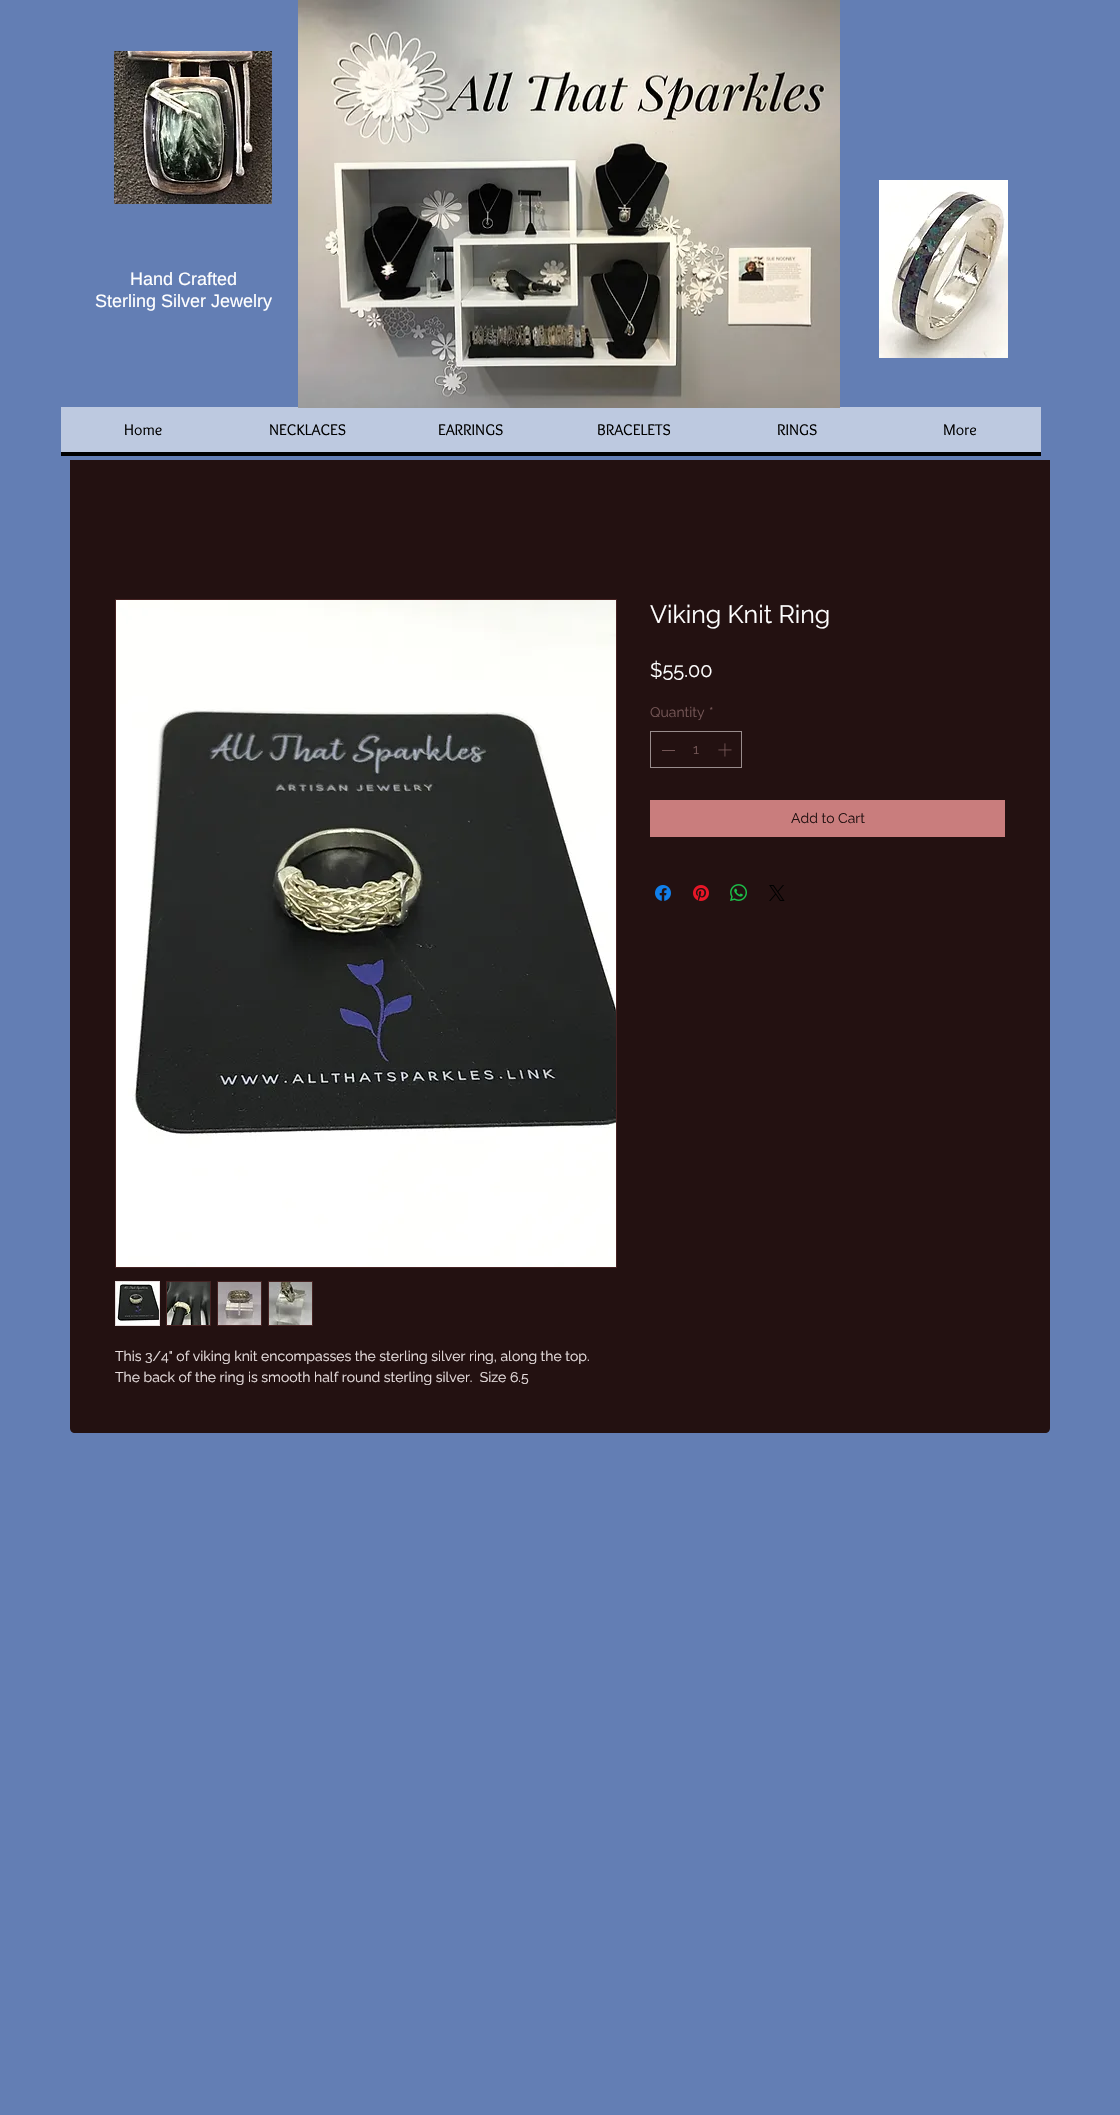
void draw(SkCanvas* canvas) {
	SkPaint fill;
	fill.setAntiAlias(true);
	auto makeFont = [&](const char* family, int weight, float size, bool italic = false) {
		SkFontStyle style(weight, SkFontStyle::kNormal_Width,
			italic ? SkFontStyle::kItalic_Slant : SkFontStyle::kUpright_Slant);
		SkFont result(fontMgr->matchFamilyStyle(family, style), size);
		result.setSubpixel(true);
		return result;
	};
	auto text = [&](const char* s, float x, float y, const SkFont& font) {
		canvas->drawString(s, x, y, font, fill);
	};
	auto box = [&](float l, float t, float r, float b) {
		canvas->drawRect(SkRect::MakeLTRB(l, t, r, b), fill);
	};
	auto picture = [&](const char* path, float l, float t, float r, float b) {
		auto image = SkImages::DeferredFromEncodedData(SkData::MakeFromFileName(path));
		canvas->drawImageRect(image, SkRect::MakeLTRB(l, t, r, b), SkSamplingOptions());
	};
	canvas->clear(0xFF637EB4);
	picture("image0.png", 114, 51, 272, 204);
	fill.setColor(0xFFBDC9E0);
	box(61, 407, 1041, 452);
	picture("image1.png", 298, 0, 840, 408);
	picture("image2.png", 879, 180, 1008, 358);
	fill.setColor(0xFF000000);
	box(61, 452, 1041, 456);
	fill.setColor(0xFF231111);
	canvas->drawPath(SkPathBuilder().moveTo(70, 460).lineTo(1050, 460).lineTo(1050, 1428).cubicTo(1050, 1431, 1048, 1433, 1045, 1433).lineTo(75, 1433).cubicTo(72, 1433, 70, 1431, 70, 1428).close().detach(), fill);
	fill.setStyle(SkPaint::kStroke_Style);
	fill.setStrokeWidth(1);
	fill.setColor(0xFF998D8D);
	canvas->drawRect(SkRect::MakeLTRB(650.5f, 731.5f, 741.5f, 767.5f), fill);
	fill.setStyle(SkPaint::kFill_Style);
	fill.setColor(0xFF745656);
	box(662, 750, 675, 751);
	picture("image3.png", 718, 743, 732, 757);
	fill.setColor(0xFFC97D7D);
	box(650, 800, 1005, 837);
	picture("image4.png", 655, 885, 671, 901);
	picture("image5.png", 693, 885, 709, 901);
	picture("image6.png", 730, 884, 747, 901);
	picture("image7.png", 769, 885, 785, 901);
	fill.setStyle(SkPaint::kStroke_Style);
	fill.setColor(0xFF452222);
	canvas->drawRect(SkRect::MakeLTRB(115.5f, 599.5f, 616.5f, 1267.5f), fill);
	picture("image8.png", 116, 600, 616, 1267);
	fill.setColor(0xFFE8DFDF);
	canvas->drawRect(SkRect::MakeLTRB(115.5f, 1281.5f, 159.5f, 1325.5f), fill);
	picture("image9.png", 116, 1282, 159, 1325);
	fill.setStyle(SkPaint::kFill_Style);
	fill.setColor(0xFF452222);
	box(166, 1281, 211, 1326);
	picture("image10.png", 167, 1282, 210, 1325);
	box(217, 1281, 262, 1326);
	picture("image11.png", 218, 1282, 261, 1325);
	box(268, 1281, 313, 1326);
	picture("image12.png", 269, 1282, 312, 1325);
	auto font1 = makeFont("Liberation Sans", 400, 18);
	fill.setColor(0xFFFFFFFF);
	text("Hand Crafted", 130, 285, font1);
	text("Sterling Silver Jewelry", 95, 307, font1);
	auto font2 = makeFont("Overlock", 400, 16);
	fill.setColor(0xFF000000);
	text("Home", 124, 435, font2);
	text("NECKLACES", 269, 435, font2);
	text("EARRINGS", 438, 435, font2);
	text("BRACELETS", 597, 435, font2);
	text("RINGS", 777, 435, font2);
	text("More", 943, 435, font2);
	auto font3 = makeFont("Raleway", 400, 25);
	fill.setColor(0xFFFFFFFF);
	text("Viking Knit Ring", 650, 623, font3);
	auto font4 = makeFont("Raleway", 400, 20);
	text("$55.00", 650, 677, font4);
	auto font5 = makeFont("Raleway", 400, 14);
	fill.setColor(0xFF745656);
	text("Quantity", 650, 717, font5);
	text("*", 709, 717, font5);
	text("1", 693, 754, font5);
	fill.setColor(0xFF231111);
	text("Add to Cart", 791, 823, font5);
	fill.setColor(0xFFE8DFDF);
	text("This 3/4\" of viking knit encompasses the sterling silver ring, along the top.", 115, 1361, font5);
	text("The back of the ring is smooth half round sterling silver.  Size 6.5", 115, 1382, font5);
}
